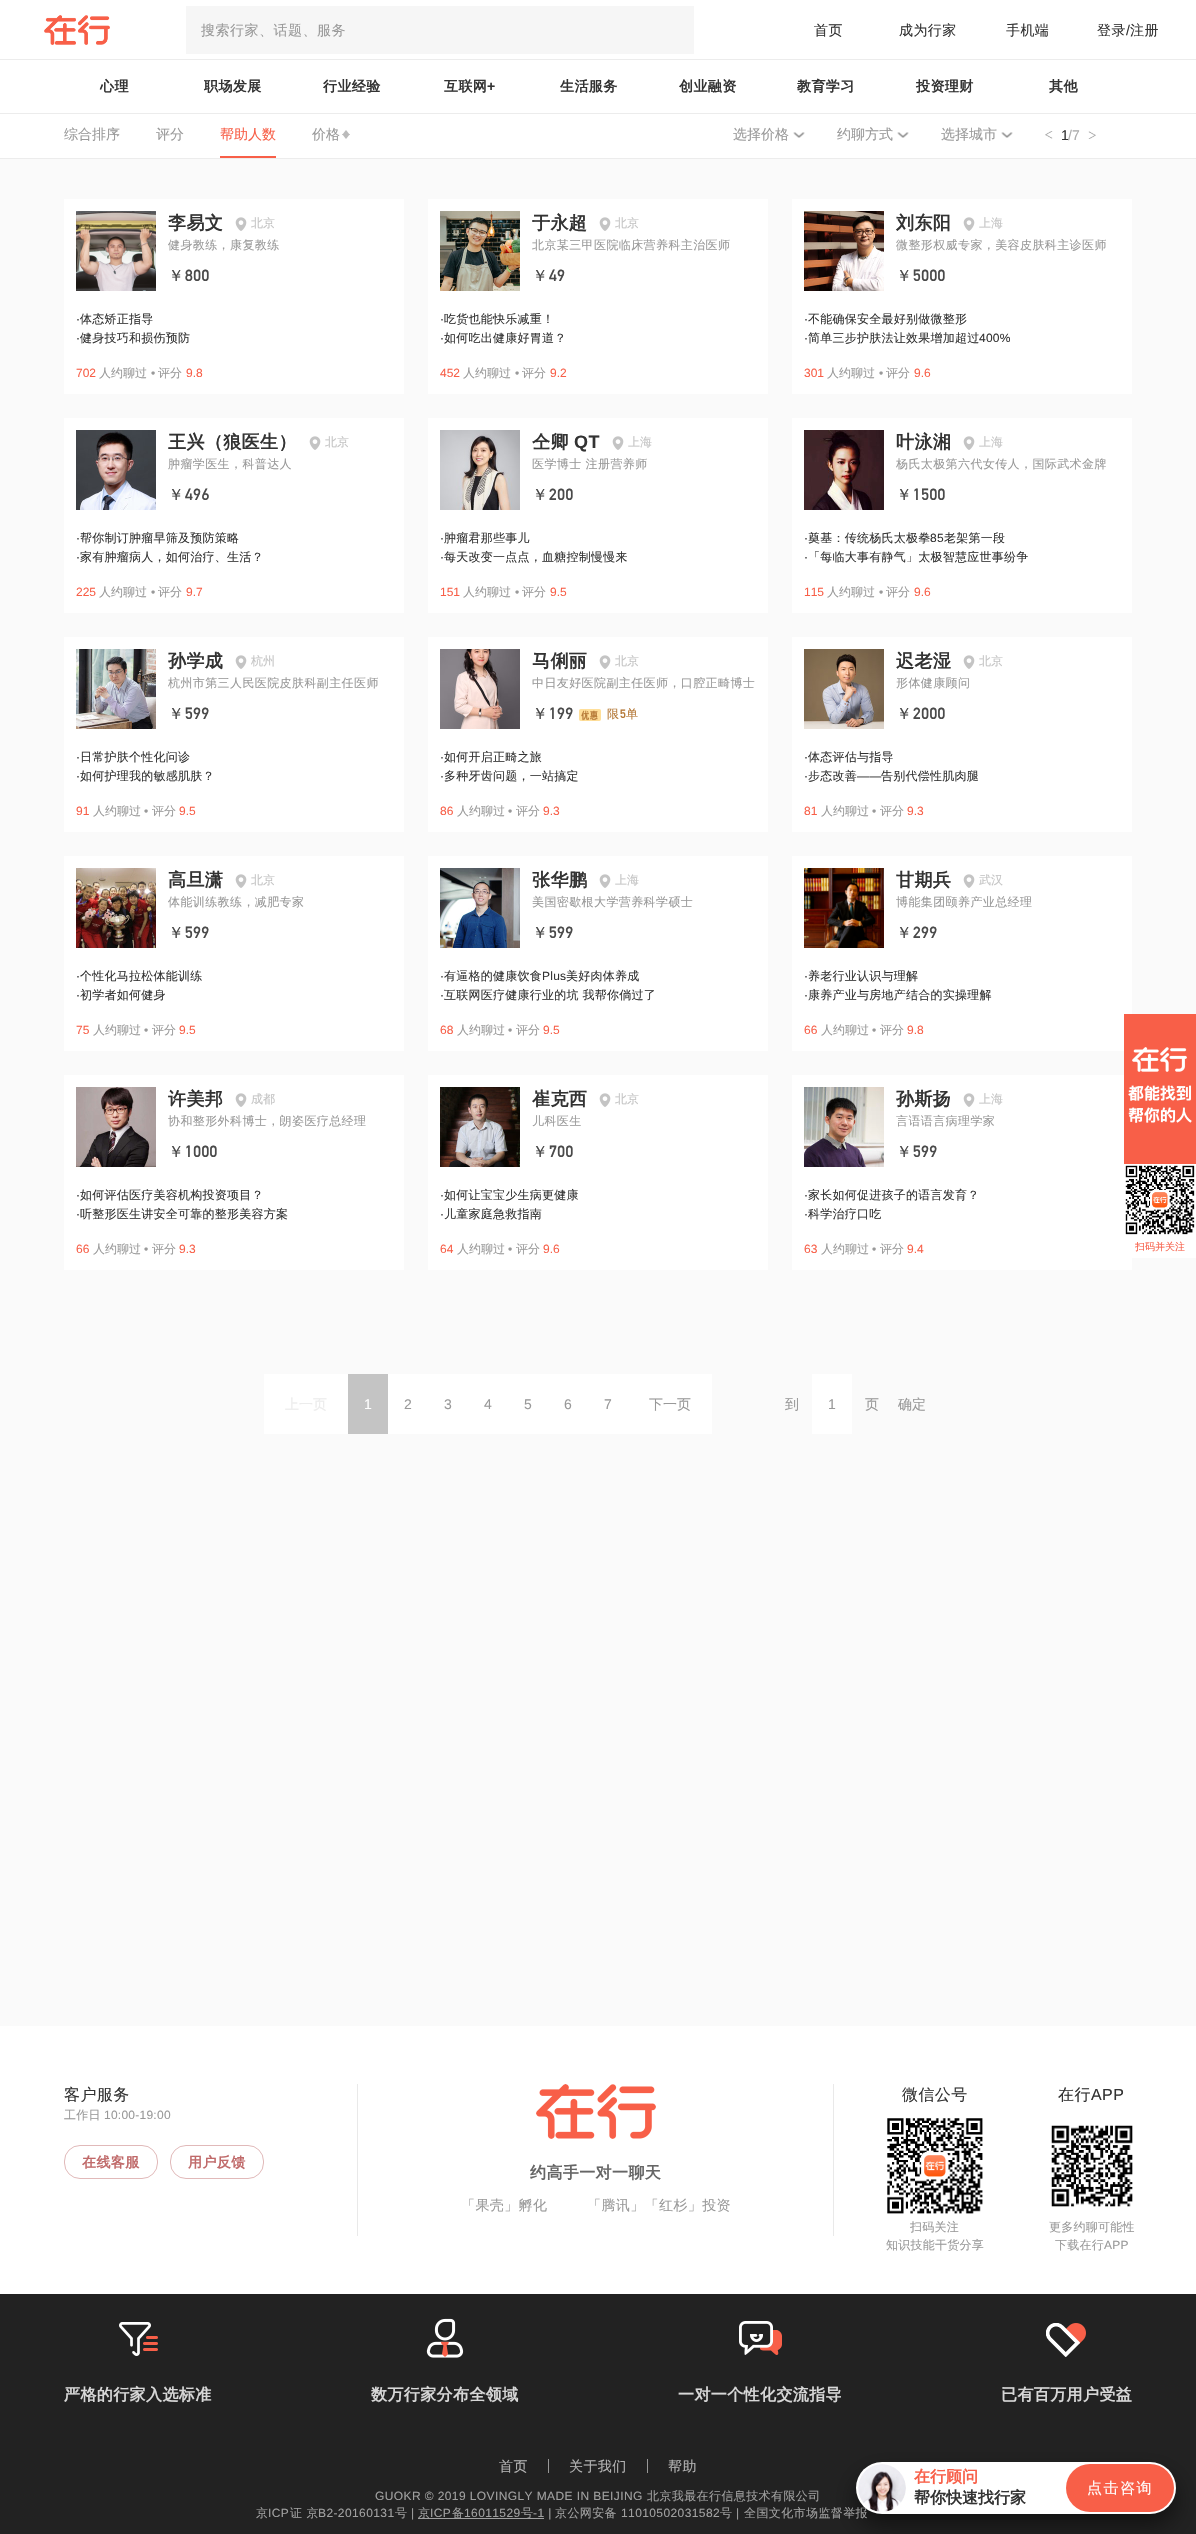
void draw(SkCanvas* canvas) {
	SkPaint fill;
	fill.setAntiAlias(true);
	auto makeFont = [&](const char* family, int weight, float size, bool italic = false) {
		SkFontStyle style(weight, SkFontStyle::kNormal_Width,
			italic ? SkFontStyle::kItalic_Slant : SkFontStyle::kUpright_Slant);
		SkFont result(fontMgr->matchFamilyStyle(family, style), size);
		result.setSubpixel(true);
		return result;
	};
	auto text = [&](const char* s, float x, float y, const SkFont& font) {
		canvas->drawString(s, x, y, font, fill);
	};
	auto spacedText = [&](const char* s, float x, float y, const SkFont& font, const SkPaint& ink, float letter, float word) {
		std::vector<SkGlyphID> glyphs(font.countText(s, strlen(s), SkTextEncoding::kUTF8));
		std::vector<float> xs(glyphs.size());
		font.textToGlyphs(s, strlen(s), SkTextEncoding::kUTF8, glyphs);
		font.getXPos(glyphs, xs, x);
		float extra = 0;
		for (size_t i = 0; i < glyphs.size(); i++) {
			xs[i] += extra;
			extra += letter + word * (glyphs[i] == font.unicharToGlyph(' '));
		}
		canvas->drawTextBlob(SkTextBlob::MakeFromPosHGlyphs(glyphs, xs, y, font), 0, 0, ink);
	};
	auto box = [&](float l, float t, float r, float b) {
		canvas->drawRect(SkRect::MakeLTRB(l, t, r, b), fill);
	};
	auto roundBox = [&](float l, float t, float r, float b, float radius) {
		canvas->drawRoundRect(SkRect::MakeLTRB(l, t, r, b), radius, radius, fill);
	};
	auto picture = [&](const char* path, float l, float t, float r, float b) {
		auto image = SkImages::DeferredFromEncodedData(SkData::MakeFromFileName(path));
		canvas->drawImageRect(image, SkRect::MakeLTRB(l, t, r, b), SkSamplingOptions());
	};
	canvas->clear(0xFFFAFAFA);
	fill.setColor(0xFFFFFFFF);
	box(0, 0, 1196, 59);
	fill.setColor(0xFFECECEC);
	box(0, 59, 1196, 60);
	picture("image0.png", 44, 15, 110, 45);
	fill.setColor(0xFFF6F6F6);
	box(186, 6, 694, 54);
	fill.setColor(0xFFFFFFFF);
	box(0, 60, 1196, 113);
	fill.setColor(0xFFECECEC);
	box(0, 113, 1196, 114);
	fill.setColor(0xFFFFFFFF);
	box(0, 114, 1196, 158);
	fill.setColor(0xFFECECEC);
	box(0, 158, 1196, 159);
	fill.setColor(0xFFF85F48);
	box(220, 156, 276, 158);
	fill.setColor(0xFFBBBBBB);
	canvas->drawPath(SkPathBuilder().moveTo(350, 135).lineTo(342, 135).lineTo(346, 130).close().detach(), fill);
	canvas->drawPath(SkPathBuilder().moveTo(342, 134).lineTo(350, 134).lineTo(346, 139).close().detach(), fill);
	picture("image1.png", 793, 132, 805, 138);
	picture("image1.png", 897, 132, 909, 138);
	picture("image1.png", 1001, 132, 1013, 138);
	picture("image2.png", 1045, 131, 1053, 139);
	picture("image3.png", 1088, 131, 1096, 139);
	fill.setColor(0xFFFFFFFF);
	box(64, 199, 404, 394);
	picture("image4.png", 76, 211, 156, 291);
	picture("image5.png", 235, 217, 247, 231);
	box(428, 199, 768, 394);
	picture("image6.png", 440, 211, 520, 291);
	picture("image5.png", 599, 217, 611, 231);
	box(792, 199, 1132, 394);
	picture("image7.png", 804, 211, 884, 291);
	picture("image5.png", 963, 217, 975, 231);
	box(64, 418, 404, 613);
	picture("image8.png", 76, 430, 156, 510);
	picture("image5.png", 309, 436, 321, 450);
	box(428, 418, 768, 613);
	picture("image9.png", 440, 430, 520, 510);
	picture("image5.png", 612, 436, 624, 450);
	box(792, 418, 1132, 613);
	picture("image10.png", 804, 430, 884, 510);
	picture("image5.png", 963, 436, 975, 450);
	box(64, 637, 404, 832);
	picture("image11.png", 76, 649, 156, 729);
	picture("image5.png", 235, 655, 247, 669);
	box(428, 637, 768, 832);
	picture("image12.png", 440, 649, 520, 729);
	picture("image5.png", 599, 655, 611, 669);
	picture("image13.png", 579, 709, 601, 721);
	box(792, 637, 1132, 832);
	picture("image14.png", 804, 649, 884, 729);
	picture("image5.png", 963, 655, 975, 669);
	box(64, 856, 404, 1051);
	picture("image15.png", 76, 868, 156, 948);
	picture("image5.png", 235, 874, 247, 888);
	box(428, 856, 768, 1051);
	picture("image16.png", 440, 868, 520, 948);
	picture("image5.png", 599, 874, 611, 888);
	box(792, 856, 1132, 1051);
	picture("image17.png", 804, 868, 884, 948);
	picture("image5.png", 963, 874, 975, 888);
	box(64, 1075, 404, 1270);
	picture("image18.png", 76, 1087, 156, 1167);
	picture("image5.png", 235, 1093, 247, 1107);
	box(428, 1075, 768, 1270);
	picture("image19.png", 440, 1087, 520, 1167);
	picture("image5.png", 599, 1093, 611, 1107);
	box(792, 1075, 1132, 1270);
	picture("image20.png", 804, 1087, 884, 1167);
	picture("image5.png", 963, 1093, 975, 1107);
	box(1132, 1164, 1196, 1258);
	picture("image21.png", 1124, 1014, 1196, 1164);
	picture("image22.png", 1125, 1165, 1195, 1235);
	box(264, 1374, 348, 1434);
	fill.setColor(0xFFC4C4C4);
	box(348, 1374, 388, 1434);
	fill.setColor(0xFFFFFFFF);
	box(388, 1374, 712, 1434);
	box(812, 1374, 852, 1434);
	fill.setColor(0xFF222222);
	box(0, 2294, 1196, 2534);
	fill.setColor(0x80000000);
	fill.setMaskFilter(SkMaskFilter::MakeBlur(kNormal_SkBlurStyle, 12));
	canvas->drawRoundRect(SkRect::MakeLTRB(856, 2474, 1176, 2526), 26, 26, fill);
	fill.setMaskFilter(nullptr);
	fill.setColor(0xFFFFFFFF);
	box(0, 2026, 1196, 2294);
	fill.setColor(0xFFE9E9E9);
	box(357, 2084, 358, 2236);
	fill.setStyle(SkPaint::kStroke_Style);
	fill.setStrokeWidth(1);
	fill.setColor(0xFFE1B9B9);
	canvas->drawRoundRect(SkRect::MakeLTRB(64.5f, 2145.5f, 157.5f, 2178.5f), 15.5f, 15.5f, fill);
	canvas->drawRoundRect(SkRect::MakeLTRB(170.5f, 2145.5f, 263.5f, 2178.5f), 15.5f, 15.5f, fill);
	fill.setStyle(SkPaint::kFill_Style);
	fill.setColor(0xFFE9E9E9);
	box(833, 2084, 834, 2236);
	picture("image24.png", 536, 2084, 656, 2139);
	picture("image25.png", 887, 2118, 983, 2214);
	picture("image26.png", 1051, 2125, 1133, 2207);
	picture("image27.png", 119, 2322, 158, 2356);
	picture("image28.png", 426, 2318, 464, 2358);
	picture("image29.png", 739, 2321, 782, 2355);
	picture("image30.png", 1046, 2323, 1086, 2357);
	fill.setColor(0xFF979797);
	box(548, 2459, 549, 2473);
	box(647, 2459, 648, 2473);
	fill.setColor(0xFFA0A0A0);
	box(418, 2518, 544, 2519);
	auto font1 = makeFont("WenQuanYi Zen Hei", 500, 14);
	fill.setColor(0xFF999999);
	spacedText("搜索行家、话题、服务", 201, 35, font1, fill, 0.5f, 0);
	fill.setColor(0xFF333333);
	spacedText("首页", 814, 35, font1, fill, 0.4f, 0);
	spacedText("成为行家", 899, 35, font1, fill, 0.4f, 0);
	spacedText("手机端", 1006, 35, font1, fill, 0.4f, 0);
	spacedText("登录", 1097, 35, font1, fill, 0.4f, 0);
	auto font2 = makeFont("Liberation Sans", 400, 14);
	spacedText("/", 1126, 35, font2, fill, 0.4f, 0);
	spacedText("注册", 1130, 35, font1, fill, 0.4f, 0);
	auto font3 = makeFont("WenQuanYi Zen Hei", 700, 14);
	spacedText("心理", 100, 91, font3, fill, 0.4f, 0);
	spacedText("职场发展", 204, 91, font3, fill, 0.4f, 0);
	spacedText("行业经验", 323, 91, font3, fill, 0.4f, 0);
	spacedText("互联网", 444, 91, font3, fill, 0.4f, 0);
	auto font4 = makeFont("Liberation Sans", 700, 14);
	spacedText("+", 487, 91, font4, fill, 0.4f, 0);
	spacedText("生活服务", 560, 91, font3, fill, 0.4f, 0);
	spacedText("创业融资", 679, 91, font3, fill, 0.4f, 0);
	spacedText("教育学习", 797, 91, font3, fill, 0.4f, 0);
	spacedText("投资理财", 916, 91, font3, fill, 0.4f, 0);
	spacedText("其他", 1049, 91, font3, fill, 0.4f, 0);
	fill.setColor(0xFF999999);
	text("综合排序", 64, 139, font1);
	text("评分", 156, 139, font1);
	fill.setColor(0xFFF85F48);
	text("帮助人数", 220, 139, font1);
	fill.setColor(0xFF999999);
	text("价格", 312, 139, font1);
	text("选择价格", 733, 139, font1);
	text("约聊方式", 837, 139, font1);
	text("选择城市", 941, 139, font1);
	fill.setColor(0xFF333333);
	text("1", 1061, 140, font2);
	fill.setColor(0xFFACACAC);
	text("/7", 1068, 140, font2);
	auto font5 = makeFont("WenQuanYi Zen Hei", 700, 18);
	fill.setColor(0xFF333333);
	spacedText("李易文", 168, 229, font5, fill, 0.4f, 0);
	auto font6 = makeFont("WenQuanYi Zen Hei", 500, 12);
	fill.setColor(0xFFC4C4C4);
	text("北京", 251, 227, font6);
	fill.setColor(0xFF999999);
	spacedText("健身教练，康复教练", 168, 249, font6, fill, 0.4f, 0);
	auto font7 = makeFont("WenQuanYi Zen Hei", 500, 16);
	fill.setColor(0xFF4A4A4A);
	spacedText("￥", 168, 281, font7, fill, 0.5f, 0);
	auto font8 = makeFont("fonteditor", 400, 16);
	spacedText("800", 185, 281, font8, fill, 0.5f, 0);
	auto font9 = makeFont("Liberation Sans", 400, 12);
	fill.setColor(0xFF333333);
	spacedText("·", 76, 323, font9, fill, 0.25f, 0);
	spacedText("体态矫正指导", 80, 323, font6, fill, 0.25f, 0);
	spacedText("·", 76, 342, font9, fill, 0.25f, 0);
	spacedText("健身技巧和损伤预防", 80, 342, font6, fill, 0.25f, 0);
	fill.setColor(0xFFF85F48);
	text("702", 76, 377, font9);
	fill.setColor(0xFF999999);
	text("人约聊过", 99, 377, font6);
	text("•", 151, 377, font9);
	text("评分", 158, 377, font6);
	fill.setColor(0xFFF85F48);
	text("9.8", 186, 377, font9);
	fill.setColor(0xFF333333);
	spacedText("于永超", 532, 229, font5, fill, 0.4f, 0);
	fill.setColor(0xFFC4C4C4);
	text("北京", 615, 227, font6);
	fill.setColor(0xFF999999);
	spacedText("北京某三甲医院临床营养科主治医师", 532, 249, font6, fill, 0.4f, 0);
	fill.setColor(0xFF4A4A4A);
	spacedText("￥", 532, 281, font7, fill, 0.5f, 0);
	spacedText("49", 549, 281, font8, fill, 0.5f, 0);
	fill.setColor(0xFF333333);
	spacedText("·", 440, 323, font9, fill, 0.25f, 0);
	spacedText("吃货也能快乐减重！", 444, 323, font6, fill, 0.25f, 0);
	spacedText("·", 440, 342, font9, fill, 0.25f, 0);
	spacedText("如何吃出健康好胃道？", 444, 342, font6, fill, 0.25f, 0);
	fill.setColor(0xFFF85F48);
	text("452", 440, 377, font9);
	fill.setColor(0xFF999999);
	text("人约聊过", 463, 377, font6);
	text("•", 515, 377, font9);
	text("评分", 522, 377, font6);
	fill.setColor(0xFFF85F48);
	text("9.2", 550, 377, font9);
	fill.setColor(0xFF333333);
	spacedText("刘东阳", 896, 229, font5, fill, 0.4f, 0);
	fill.setColor(0xFFC4C4C4);
	text("上海", 979, 227, font6);
	fill.setColor(0xFF999999);
	spacedText("微整形权威专家，美容皮肤科主诊医师", 896, 249, font6, fill, 0.4f, 0);
	fill.setColor(0xFF4A4A4A);
	spacedText("￥", 896, 281, font7, fill, 0.5f, 0);
	spacedText("5000", 913, 281, font8, fill, 0.5f, 0);
	fill.setColor(0xFF333333);
	spacedText("·", 804, 323, font9, fill, 0.25f, 0);
	spacedText("不能确保安全最好别做微整形", 808, 323, font6, fill, 0.25f, 0);
	spacedText("·", 804, 342, font9, fill, 0.25f, 0);
	spacedText("简单三步护肤法让效果增加超过", 808, 342, font6, fill, 0.25f, 0);
	spacedText("400%", 979, 342, font9, fill, 0.25f, 0);
	fill.setColor(0xFFF85F48);
	text("301", 804, 377, font9);
	fill.setColor(0xFF999999);
	text("人约聊过", 827, 377, font6);
	text("•", 879, 377, font9);
	text("评分", 886, 377, font6);
	fill.setColor(0xFFF85F48);
	text("9.6", 914, 377, font9);
	fill.setColor(0xFF333333);
	spacedText("王兴（狼医生）", 168, 448, font5, fill, 0.4f, 0);
	fill.setColor(0xFFC4C4C4);
	text("北京", 325, 446, font6);
	fill.setColor(0xFF999999);
	spacedText("肿瘤学医生，科普达人", 168, 468, font6, fill, 0.4f, 0);
	fill.setColor(0xFF4A4A4A);
	spacedText("￥", 168, 500, font7, fill, 0.5f, 0);
	spacedText("496", 185, 500, font8, fill, 0.5f, 0);
	fill.setColor(0xFF333333);
	spacedText("·", 76, 542, font9, fill, 0.25f, 0);
	spacedText("帮你制订肿瘤早筛及预防策略", 80, 542, font6, fill, 0.25f, 0);
	spacedText("·", 76, 561, font9, fill, 0.25f, 0);
	spacedText("家有肿瘤病人，如何治疗、生活？", 80, 561, font6, fill, 0.25f, 0);
	fill.setColor(0xFFF85F48);
	text("225", 76, 596, font9);
	fill.setColor(0xFF999999);
	text("人约聊过", 99, 596, font6);
	text("•", 151, 596, font9);
	text("评分", 158, 596, font6);
	fill.setColor(0xFFF85F48);
	text("9.7", 186, 596, font9);
	fill.setColor(0xFF333333);
	spacedText("仝卿", 532, 448, font5, fill, 0.4f, 0);
	auto font10 = makeFont("Liberation Sans", 700, 18);
	spacedText("QT", 574, 448, font10, fill, 0.4f, 0);
	fill.setColor(0xFFC4C4C4);
	text("上海", 628, 446, font6);
	fill.setColor(0xFF999999);
	spacedText("医学博士 注册营养师", 532, 468, font6, fill, 0.4f, 0);
	fill.setColor(0xFF4A4A4A);
	spacedText("￥", 532, 500, font7, fill, 0.5f, 0);
	spacedText("200", 549, 500, font8, fill, 0.5f, 0);
	fill.setColor(0xFF333333);
	spacedText("·", 440, 542, font9, fill, 0.25f, 0);
	spacedText("肿瘤君那些事儿", 444, 542, font6, fill, 0.25f, 0);
	spacedText("·", 440, 561, font9, fill, 0.25f, 0);
	spacedText("每天改变一点点，血糖控制慢慢来", 444, 561, font6, fill, 0.25f, 0);
	fill.setColor(0xFFF85F48);
	text("151", 440, 596, font9);
	fill.setColor(0xFF999999);
	text("人约聊过", 463, 596, font6);
	text("•", 515, 596, font9);
	text("评分", 522, 596, font6);
	fill.setColor(0xFFF85F48);
	text("9.5", 550, 596, font9);
	fill.setColor(0xFF333333);
	spacedText("叶泳湘", 896, 448, font5, fill, 0.4f, 0);
	fill.setColor(0xFFC4C4C4);
	text("上海", 979, 446, font6);
	fill.setColor(0xFF999999);
	spacedText("杨氏太极第六代女传人，国际武术金牌", 896, 468, font6, fill, 0.4f, 0);
	fill.setColor(0xFF4A4A4A);
	spacedText("￥", 896, 500, font7, fill, 0.5f, 0);
	spacedText("1500", 913, 500, font8, fill, 0.5f, 0);
	fill.setColor(0xFF333333);
	spacedText("·", 804, 542, font9, fill, 0.25f, 0);
	spacedText("奠基：传统杨氏太极拳", 808, 542, font6, fill, 0.25f, 0);
	spacedText("85", 930, 542, font9, fill, 0.25f, 0);
	spacedText("老架第一段", 944, 542, font6, fill, 0.25f, 0);
	spacedText("·", 804, 561, font9, fill, 0.25f, 0);
	spacedText("「每临大事有静气」太极智慧应世事纷争", 808, 561, font6, fill, 0.25f, 0);
	fill.setColor(0xFFF85F48);
	text("115", 804, 596, font9);
	fill.setColor(0xFF999999);
	text("人约聊过", 827, 596, font6);
	text("•", 879, 596, font9);
	text("评分", 886, 596, font6);
	fill.setColor(0xFFF85F48);
	text("9.6", 914, 596, font9);
	fill.setColor(0xFF333333);
	spacedText("孙学成", 168, 667, font5, fill, 0.4f, 0);
	fill.setColor(0xFFC4C4C4);
	text("杭州", 251, 665, font6);
	fill.setColor(0xFF999999);
	spacedText("杭州市第三人民医院皮肤科副主任医师", 168, 687, font6, fill, 0.4f, 0);
	fill.setColor(0xFF4A4A4A);
	spacedText("￥", 168, 719, font7, fill, 0.5f, 0);
	spacedText("599", 185, 719, font8, fill, 0.5f, 0);
	fill.setColor(0xFF333333);
	spacedText("·", 76, 761, font9, fill, 0.25f, 0);
	spacedText("日常护肤个性化问诊", 80, 761, font6, fill, 0.25f, 0);
	spacedText("·", 76, 780, font9, fill, 0.25f, 0);
	spacedText("如何护理我的敏感肌肤？", 80, 780, font6, fill, 0.25f, 0);
	fill.setColor(0xFFF85F48);
	text("91", 76, 815, font9);
	fill.setColor(0xFF999999);
	text("人约聊过", 93, 815, font6);
	text("•", 144, 815, font9);
	text("评分", 152, 815, font6);
	fill.setColor(0xFFF85F48);
	text("9.5", 179, 815, font9);
	fill.setColor(0xFF333333);
	spacedText("马俐丽", 532, 667, font5, fill, 0.4f, 0);
	fill.setColor(0xFFC4C4C4);
	text("北京", 615, 665, font6);
	fill.setColor(0xFF999999);
	spacedText("中日友好医院副主任医师，口腔正畸博士", 532, 687, font6, fill, 0.4f, 0);
	fill.setColor(0xFF4A4A4A);
	spacedText("￥", 532, 719, font7, fill, 0.5f, 0);
	spacedText("199", 549, 719, font8, fill, 0.5f, 0);
	fill.setColor(0xFFB47735);
	spacedText("限", 607, 718, font6, fill, 0.4f, 0);
	auto font11 = makeFont("fonteditor", 400, 12);
	spacedText("5", 620, 718, font11, fill, 0.4f, 0);
	spacedText("单", 626, 718, font6, fill, 0.4f, 0);
	fill.setColor(0xFF333333);
	spacedText("·", 440, 761, font9, fill, 0.25f, 0);
	spacedText("如何开启正畸之旅", 444, 761, font6, fill, 0.25f, 0);
	spacedText("·", 440, 780, font9, fill, 0.25f, 0);
	spacedText("多种牙齿问题，一站搞定", 444, 780, font6, fill, 0.25f, 0);
	fill.setColor(0xFFF85F48);
	text("86", 440, 815, font9);
	fill.setColor(0xFF999999);
	text("人约聊过", 457, 815, font6);
	text("•", 508, 815, font9);
	text("评分", 516, 815, font6);
	fill.setColor(0xFFF85F48);
	text("9.3", 543, 815, font9);
	fill.setColor(0xFF333333);
	spacedText("迟老湿", 896, 667, font5, fill, 0.4f, 0);
	fill.setColor(0xFFC4C4C4);
	text("北京", 979, 665, font6);
	fill.setColor(0xFF999999);
	spacedText("形体健康顾问", 896, 687, font6, fill, 0.4f, 0);
	fill.setColor(0xFF4A4A4A);
	spacedText("￥", 896, 719, font7, fill, 0.5f, 0);
	spacedText("2000", 913, 719, font8, fill, 0.5f, 0);
	fill.setColor(0xFF333333);
	spacedText("·", 804, 761, font9, fill, 0.25f, 0);
	spacedText("体态评估与指导", 808, 761, font6, fill, 0.25f, 0);
	spacedText("·", 804, 780, font9, fill, 0.25f, 0);
	spacedText("步态改善", 808, 780, font6, fill, 0.25f, 0);
	spacedText("——", 857, 780, font9, fill, 0.25f, 0);
	spacedText("告别代偿性肌肉腿", 881, 780, font6, fill, 0.25f, 0);
	fill.setColor(0xFFF85F48);
	text("81", 804, 815, font9);
	fill.setColor(0xFF999999);
	text("人约聊过", 821, 815, font6);
	text("•", 872, 815, font9);
	text("评分", 880, 815, font6);
	fill.setColor(0xFFF85F48);
	text("9.3", 907, 815, font9);
	fill.setColor(0xFF333333);
	spacedText("高旦潇", 168, 886, font5, fill, 0.4f, 0);
	fill.setColor(0xFFC4C4C4);
	text("北京", 251, 884, font6);
	fill.setColor(0xFF999999);
	spacedText("体能训练教练，减肥专家", 168, 906, font6, fill, 0.4f, 0);
	fill.setColor(0xFF4A4A4A);
	spacedText("￥", 168, 938, font7, fill, 0.5f, 0);
	spacedText("599", 185, 938, font8, fill, 0.5f, 0);
	fill.setColor(0xFF333333);
	spacedText("·", 76, 980, font9, fill, 0.25f, 0);
	spacedText("个性化马拉松体能训练", 80, 980, font6, fill, 0.25f, 0);
	spacedText("·", 76, 999, font9, fill, 0.25f, 0);
	spacedText("初学者如何健身", 80, 999, font6, fill, 0.25f, 0);
	fill.setColor(0xFFF85F48);
	text("75", 76, 1034, font9);
	fill.setColor(0xFF999999);
	text("人约聊过", 93, 1034, font6);
	text("•", 144, 1034, font9);
	text("评分", 152, 1034, font6);
	fill.setColor(0xFFF85F48);
	text("9.5", 179, 1034, font9);
	fill.setColor(0xFF333333);
	spacedText("张华鹏", 532, 886, font5, fill, 0.4f, 0);
	fill.setColor(0xFFC4C4C4);
	text("上海", 615, 884, font6);
	fill.setColor(0xFF999999);
	spacedText("美国密歇根大学营养科学硕士", 532, 906, font6, fill, 0.4f, 0);
	fill.setColor(0xFF4A4A4A);
	spacedText("￥", 532, 938, font7, fill, 0.5f, 0);
	spacedText("599", 549, 938, font8, fill, 0.5f, 0);
	fill.setColor(0xFF333333);
	spacedText("·", 440, 980, font9, fill, 0.25f, 0);
	spacedText("有逼格的健康饮食", 444, 980, font6, fill, 0.25f, 0);
	spacedText("Plus", 542, 980, font9, fill, 0.25f, 0);
	spacedText("美好肉体养成", 566, 980, font6, fill, 0.25f, 0);
	spacedText("·", 440, 999, font9, fill, 0.25f, 0);
	spacedText("互联网医疗健康行业的坑 我帮你倘过了", 444, 999, font6, fill, 0.25f, 0);
	fill.setColor(0xFFF85F48);
	text("68", 440, 1034, font9);
	fill.setColor(0xFF999999);
	text("人约聊过", 457, 1034, font6);
	text("•", 508, 1034, font9);
	text("评分", 516, 1034, font6);
	fill.setColor(0xFFF85F48);
	text("9.5", 543, 1034, font9);
	fill.setColor(0xFF333333);
	spacedText("甘期兵", 896, 886, font5, fill, 0.4f, 0);
	fill.setColor(0xFFC4C4C4);
	text("武汉", 979, 884, font6);
	fill.setColor(0xFF999999);
	spacedText("博能集团颐养产业总经理", 896, 906, font6, fill, 0.4f, 0);
	fill.setColor(0xFF4A4A4A);
	spacedText("￥", 896, 938, font7, fill, 0.5f, 0);
	spacedText("299", 913, 938, font8, fill, 0.5f, 0);
	fill.setColor(0xFF333333);
	spacedText("·", 804, 980, font9, fill, 0.25f, 0);
	spacedText("养老行业认识与理解", 808, 980, font6, fill, 0.25f, 0);
	spacedText("·", 804, 999, font9, fill, 0.25f, 0);
	spacedText("康养产业与房地产结合的实操理解", 808, 999, font6, fill, 0.25f, 0);
	fill.setColor(0xFFF85F48);
	text("66", 804, 1034, font9);
	fill.setColor(0xFF999999);
	text("人约聊过", 821, 1034, font6);
	text("•", 872, 1034, font9);
	text("评分", 880, 1034, font6);
	fill.setColor(0xFFF85F48);
	text("9.8", 907, 1034, font9);
	fill.setColor(0xFF333333);
	spacedText("许美邦", 168, 1105, font5, fill, 0.4f, 0);
	fill.setColor(0xFFC4C4C4);
	text("成都", 251, 1103, font6);
	fill.setColor(0xFF999999);
	spacedText("协和整形外科博士，朗姿医疗总经理", 168, 1125, font6, fill, 0.4f, 0);
	fill.setColor(0xFF4A4A4A);
	spacedText("￥", 168, 1157, font7, fill, 0.5f, 0);
	spacedText("1000", 185, 1157, font8, fill, 0.5f, 0);
	fill.setColor(0xFF333333);
	spacedText("·", 76, 1199, font9, fill, 0.25f, 0);
	spacedText("如何评估医疗美容机构投资项目？", 80, 1199, font6, fill, 0.25f, 0);
	spacedText("·", 76, 1218, font9, fill, 0.25f, 0);
	spacedText("听整形医生讲安全可靠的整形美容方案", 80, 1218, font6, fill, 0.25f, 0);
	fill.setColor(0xFFF85F48);
	text("66", 76, 1253, font9);
	fill.setColor(0xFF999999);
	text("人约聊过", 93, 1253, font6);
	text("•", 144, 1253, font9);
	text("评分", 152, 1253, font6);
	fill.setColor(0xFFF85F48);
	text("9.3", 179, 1253, font9);
	fill.setColor(0xFF333333);
	spacedText("崔克西", 532, 1105, font5, fill, 0.4f, 0);
	fill.setColor(0xFFC4C4C4);
	text("北京", 615, 1103, font6);
	fill.setColor(0xFF999999);
	spacedText("儿科医生", 532, 1125, font6, fill, 0.4f, 0);
	fill.setColor(0xFF4A4A4A);
	spacedText("￥", 532, 1157, font7, fill, 0.5f, 0);
	spacedText("700", 549, 1157, font8, fill, 0.5f, 0);
	fill.setColor(0xFF333333);
	spacedText("·", 440, 1199, font9, fill, 0.25f, 0);
	spacedText("如何让宝宝少生病更健康", 444, 1199, font6, fill, 0.25f, 0);
	spacedText("·", 440, 1218, font9, fill, 0.25f, 0);
	spacedText("儿童家庭急救指南", 444, 1218, font6, fill, 0.25f, 0);
	fill.setColor(0xFFF85F48);
	text("64", 440, 1253, font9);
	fill.setColor(0xFF999999);
	text("人约聊过", 457, 1253, font6);
	text("•", 508, 1253, font9);
	text("评分", 516, 1253, font6);
	fill.setColor(0xFFF85F48);
	text("9.6", 543, 1253, font9);
	fill.setColor(0xFF333333);
	spacedText("孙斯扬", 896, 1105, font5, fill, 0.4f, 0);
	fill.setColor(0xFFC4C4C4);
	text("上海", 979, 1103, font6);
	fill.setColor(0xFF999999);
	spacedText("言语语言病理学家", 896, 1125, font6, fill, 0.4f, 0);
	fill.setColor(0xFF4A4A4A);
	spacedText("￥", 896, 1157, font7, fill, 0.5f, 0);
	spacedText("599", 913, 1157, font8, fill, 0.5f, 0);
	fill.setColor(0xFF333333);
	spacedText("·", 804, 1199, font9, fill, 0.25f, 0);
	spacedText("家长如何促进孩子的语言发育？", 808, 1199, font6, fill, 0.25f, 0);
	spacedText("·", 804, 1218, font9, fill, 0.25f, 0);
	spacedText("科学治疗口吃", 808, 1218, font6, fill, 0.25f, 0);
	fill.setColor(0xFFF85F48);
	text("63", 804, 1253, font9);
	fill.setColor(0xFF999999);
	text("人约聊过", 821, 1253, font6);
	text("•", 872, 1253, font9);
	text("评分", 880, 1253, font6);
	fill.setColor(0xFFF85F48);
	text("9.4", 907, 1253, font9);
	auto font12 = makeFont("WenQuanYi Zen Hei", 500, 10);
	text("扫码并关注", 1135, 1250, font12);
	fill.setColor(0xFFECECEC);
	text("上一页", 285, 1409, font1);
	fill.setColor(0xFFFFFFFF);
	text("1", 364, 1409, font2);
	fill.setColor(0xFF999999);
	text("2", 404, 1409, font2);
	text("3", 444, 1409, font2);
	text("4", 484, 1409, font2);
	text("5", 524, 1409, font2);
	text("6", 564, 1409, font2);
	text("7", 604, 1409, font2);
	text("下一页", 649, 1409, font1);
	text("到", 785, 1409, font1);
	text("1", 828, 1409, font2);
	text("页", 865, 1409, font1);
	text("确定", 898, 1409, font1);
	fill.setColor(0xFF333333);
	spacedText("客户服务", 64, 2100, font7, fill, 0.4f, 0);
	fill.setColor(0xFF999999);
	spacedText("工作日", 64, 2119, font6, fill, 0.25f, 0);
	spacedText("10:00-19:00", 104, 2119, font9, fill, 0.25f, 0);
	fill.setColor(0xFFC06A6A);
	spacedText("在线客服", 82, 2167, font3, fill, 0.4f, 0);
	spacedText("用户反馈", 188, 2167, font3, fill, 0.4f, 0);
	auto font13 = makeFont("WenQuanYi Zen Hei", 700, 16);
	fill.setColor(0xFF666666);
	spacedText("约高手一对一聊天", 530, 2178, font13, fill, 0.4f, 0);
	fill.setColor(0xFF999999);
	spacedText("「果壳」孵化", 461, 2210, font1, fill, 0.4f, 0);
	spacedText("「腾讯」「红杉」投资", 587, 2210, font1, fill, 0.4f, 0);
	fill.setColor(0xFF333333);
	spacedText("微信公号", 902, 2100, font7, fill, 0.4f, 0);
	fill.setColor(0xFF999999);
	spacedText("扫码关注", 910, 2231, font6, fill, 0.25f, 0);
	spacedText("知识技能干货分享", 886, 2249, font6, fill, 0.25f, 0);
	fill.setColor(0xFF333333);
	spacedText("在行", 1058, 2100, font7, fill, 0.4f, 0);
	auto font14 = makeFont("Liberation Sans", 400, 16);
	spacedText("APP", 1091, 2100, font14, fill, 0.4f, 0);
	fill.setColor(0xFF999999);
	spacedText("更多约聊可能性", 1049, 2231, font6, fill, 0.25f, 0);
	spacedText("下载在行", 1055, 2249, font6, fill, 0.25f, 0);
	spacedText("APP", 1104, 2249, font9, fill, 0.25f, 0);
	fill.setColor(0xFFD7D7D7);
	spacedText("严格的行家入选标准", 64, 2400, font13, fill, 0.4f, 0);
	spacedText("数万行家分布全领域", 371, 2400, font13, fill, 0.4f, 0);
	spacedText("一对一个性化交流指导", 678, 2400, font13, fill, 0.4f, 0);
	spacedText("已有百万用户受益", 1001, 2400, font13, fill, 0.4f, 0);
	fill.setColor(0xFFB4B4B4);
	spacedText("首页", 499, 2471, font1, fill, 0.4f, 0);
	spacedText("关于我们", 569, 2471, font1, fill, 0.4f, 0);
	spacedText("帮助", 668, 2471, font1, fill, 0.4f, 0);
	fill.setColor(0xFFA0A0A0);
	spacedText("GUOKR © 2019 LOVINGLY MADE IN BEIJING", 375, 2500, font9, fill, 0.4f, 0);
	spacedText("北京我最在行信息技术有限公司", 647, 2500, font6, fill, 0.4f, 0);
	spacedText("京", 256, 2517, font6, fill, 0.4f, 0);
	spacedText("ICP", 268, 2517, font9, fill, 0.4f, 0);
	spacedText("证 京", 290, 2517, font6, fill, 0.4f, 0);
	spacedText("B2-20160131", 318, 2517, font9, fill, 0.4f, 0);
	spacedText("号", 395, 2517, font6, fill, 0.4f, 0);
	spacedText("|", 411, 2517, font9, fill, 0.4f, 0);
	spacedText("京", 418, 2517, font6, fill, 0.4f, 0);
	spacedText("ICP", 430, 2517, font9, fill, 0.4f, 0);
	spacedText("备", 452, 2517, font6, fill, 0.4f, 0);
	spacedText("16011529", 464, 2517, font9, fill, 0.4f, 0);
	spacedText("号", 521, 2517, font6, fill, 0.4f, 0);
	spacedText("-1 |", 533, 2517, font9, fill, 0.4f, 0);
	spacedText("京公网安备", 555, 2517, font6, fill, 0.4f, 0);
	spacedText("11010502031582", 621, 2517, font9, fill, 0.4f, 0);
	spacedText("号", 720, 2517, font6, fill, 0.4f, 0);
	spacedText("|", 736, 2517, font9, fill, 0.4f, 0);
	spacedText("全国文化市场监督举报", 744, 2517, font6, fill, 0.4f, 0);
	fill.setColor(0xFFFFFFFF);
	roundBox(856, 2462, 1176, 2514, 26);
	fill.setColor(0xFFF85F48);
	roundBox(1066, 2464, 1174, 2512, 24);
	auto font15 = makeFont("WenQuanYi Zen Hei", 500, 15);
	fill.setColor(0xFFFFFFFF);
	spacedText("点击咨询", 1087, 2493, font15, fill, 1.5f, 0);
	fill.setColor(0xFF333333);
	text("帮你快速找行家", 914, 2503, font13);
	fill.setColor(0xFFF85F48);
	text("在行顾问", 914, 2482, font13);
	picture("image23.png", 858, 2464, 906, 2512);
}
